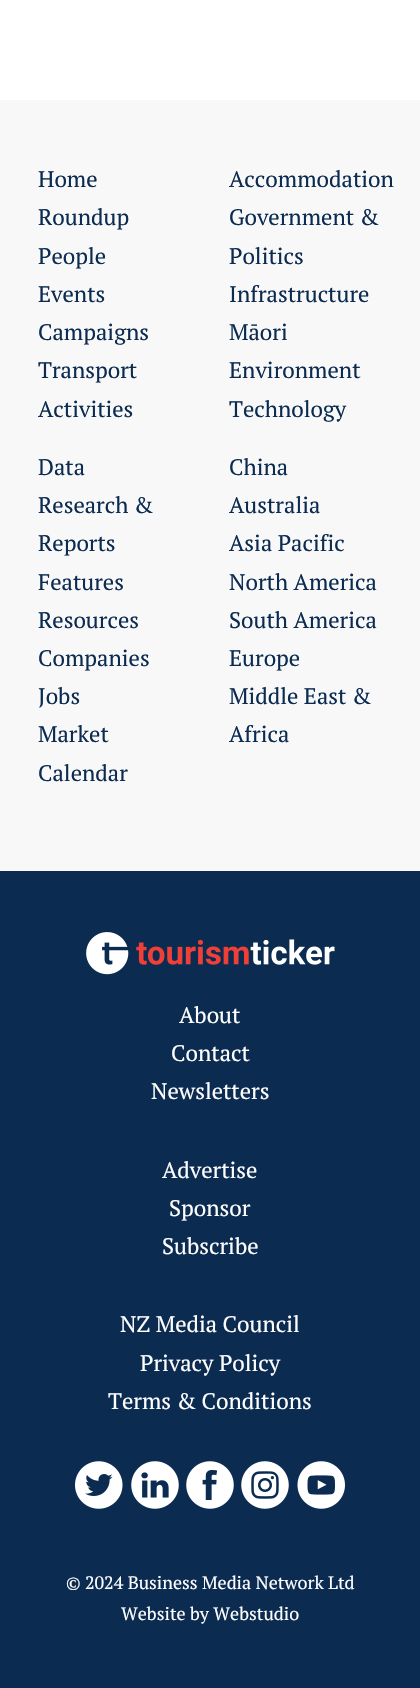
void draw(SkCanvas* canvas) {
	SkPaint fill;
	fill.setAntiAlias(true);
	auto makeFont = [&](const char* family, int weight, float size, bool italic = false) {
		SkFontStyle style(weight, SkFontStyle::kNormal_Width,
			italic ? SkFontStyle::kItalic_Slant : SkFontStyle::kUpright_Slant);
		SkFont result(fontMgr->matchFamilyStyle(family, style), size);
		result.setSubpixel(true);
		return result;
	};
	auto text = [&](const char* s, float x, float y, const SkFont& font) {
		canvas->drawString(s, x, y, font, fill);
	};
	auto box = [&](float l, float t, float r, float b) {
		canvas->drawRect(SkRect::MakeLTRB(l, t, r, b), fill);
	};
	auto picture = [&](const char* path, float l, float t, float r, float b) {
		auto image = SkImages::DeferredFromEncodedData(SkData::MakeFromFileName(path));
		canvas->drawImageRect(image, SkRect::MakeLTRB(l, t, r, b), SkSamplingOptions());
	};
	canvas->clear(0xFFFFFFFF);
	fill.setColor(0xFFF8F8F8);
	box(0, 100, 420, 871);
	fill.setColor(0xFF0B2B51);
	box(0, 871, 420, 1688);
	picture("image0.png", 86, 932, 335, 975);
	picture("image1.png", 75, 1461, 123, 1509);
	picture("image2.png", 131, 1461, 179, 1509);
	picture("image3.png", 186, 1461, 234, 1509);
	picture("image4.png", 241, 1461, 289, 1509);
	picture("image5.png", 297, 1461, 345, 1509);
	auto font1 = makeFont("PT Serif", 400, 22.5f);
	text("Home", 38, 187, font1);
	text("Roundup", 38, 225, font1);
	text("People", 38, 264, font1);
	text("Events", 38, 302, font1);
	text("Campaigns", 38, 340, font1);
	text("Transport", 38, 378, font1);
	text("Activities", 38, 417, font1);
	text("Accommodation", 229, 187, font1);
	text("Government &", 229, 225, font1);
	text("Politics", 229, 264, font1);
	text("Infrastructure", 229, 302, font1);
	text("Māori", 229, 340, font1);
	text("Environment", 229, 378, font1);
	text("Technology", 229, 417, font1);
	text("Data", 38, 475, font1);
	text("Research &", 38, 513, font1);
	text("Reports", 38, 551, font1);
	text("Features", 38, 590, font1);
	text("Resources", 38, 628, font1);
	text("Companies", 38, 666, font1);
	text("Jobs", 38, 704, font1);
	text("Market", 38, 742, font1);
	text("Calendar", 38, 781, font1);
	text("China", 229, 475, font1);
	text("Australia", 229, 513, font1);
	text("Asia Pacific", 229, 551, font1);
	text("North America", 229, 590, font1);
	text("South America", 229, 628, font1);
	text("Europe", 229, 666, font1);
	text("Middle East &", 229, 704, font1);
	text("Africa", 229, 742, font1);
	fill.setColor(0xFFFFFFFF);
	text("About", 179, 1023, font1);
	text("Contact", 171, 1061, font1);
	text("Newsletters", 151, 1099, font1);
	text("Advertise", 162, 1178, font1);
	text("Sponsor", 169, 1216, font1);
	text("Subscribe", 162, 1254, font1);
	text("NZ Media Council", 120, 1332, font1);
	text("Privacy Policy", 140, 1371, font1);
	text("Terms & Conditions", 108, 1409, font1);
	auto font2 = makeFont("PT Serif", 400, 18);
	text("© 2024 Business Media Network Ltd", 66, 1589, font2);
	text("Website by Webstudio", 121, 1620, font2);
}
